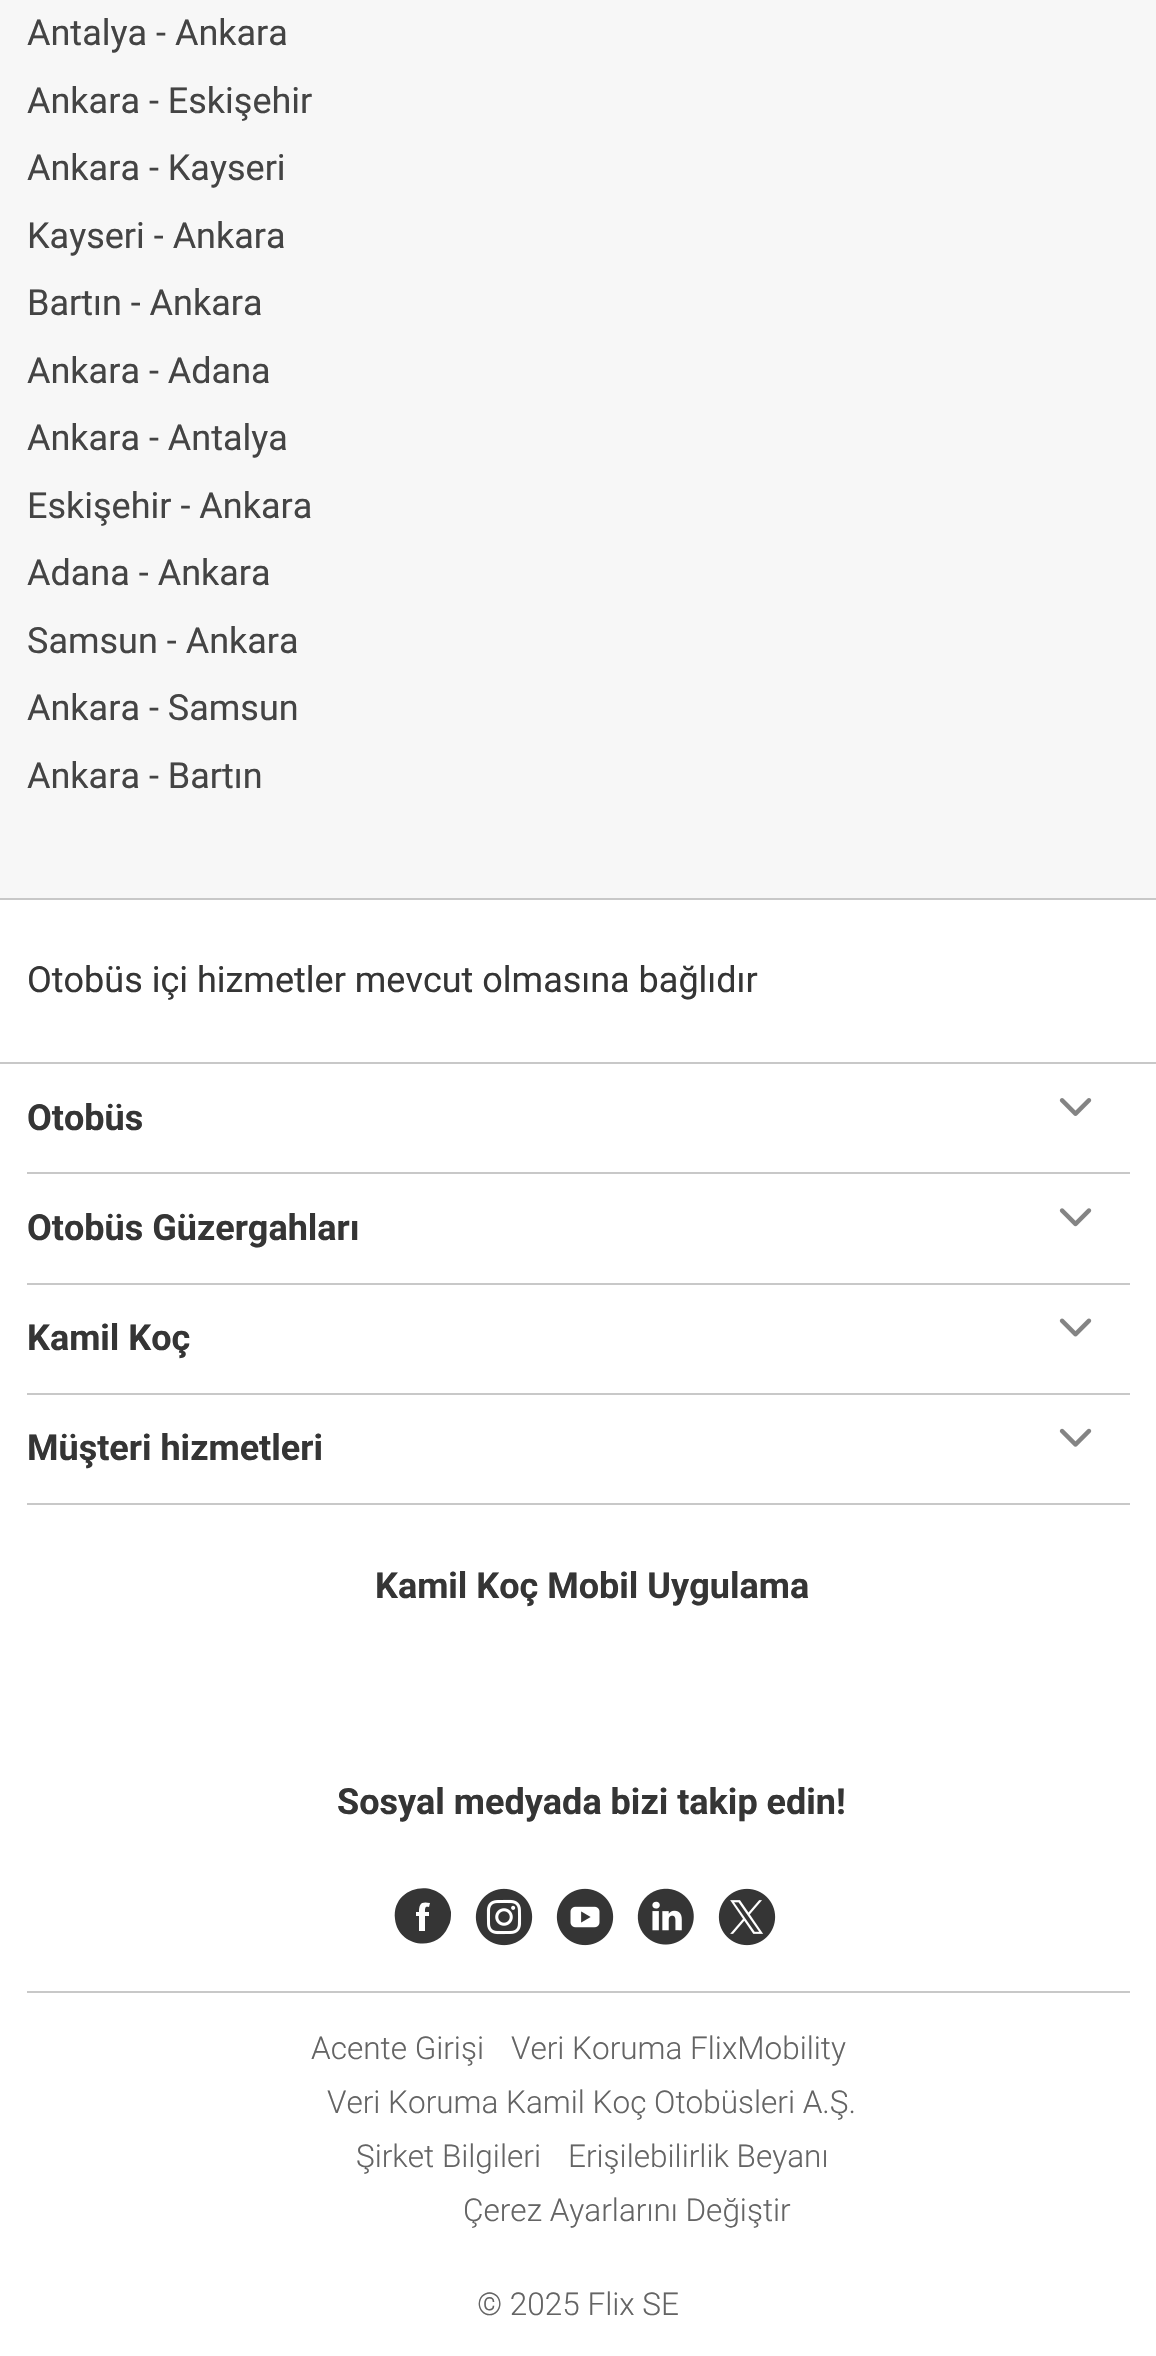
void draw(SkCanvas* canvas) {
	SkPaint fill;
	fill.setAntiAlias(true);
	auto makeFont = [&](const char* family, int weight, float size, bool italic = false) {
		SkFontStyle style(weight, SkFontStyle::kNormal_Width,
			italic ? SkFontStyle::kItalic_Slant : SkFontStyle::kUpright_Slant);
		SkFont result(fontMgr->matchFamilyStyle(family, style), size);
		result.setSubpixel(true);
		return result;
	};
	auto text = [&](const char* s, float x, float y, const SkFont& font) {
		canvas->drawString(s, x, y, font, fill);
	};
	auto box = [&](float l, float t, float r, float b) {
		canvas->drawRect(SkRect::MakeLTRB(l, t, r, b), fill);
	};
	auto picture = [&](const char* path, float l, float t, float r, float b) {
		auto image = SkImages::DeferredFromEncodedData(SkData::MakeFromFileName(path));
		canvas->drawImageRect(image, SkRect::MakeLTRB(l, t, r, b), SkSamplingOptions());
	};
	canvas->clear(0xFFFFFFFF);
	fill.setColor(0xFFF7F7F7);
	box(0, 0, 1156, 898);
	fill.setColor(0xFFC8C8C8);
	box(0, 898, 1156, 900);
	box(0, 1062, 1156, 1064);
	box(27, 1172, 1130, 1174);
	picture("image0.png", 1059, 1098, 1092, 1116);
	box(27, 1283, 1130, 1285);
	picture("image1.png", 1059, 1208, 1092, 1227);
	box(27, 1393, 1130, 1395);
	picture("image2.png", 1059, 1318, 1092, 1337);
	box(27, 1503, 1130, 1505);
	picture("image3.png", 1059, 1428, 1092, 1447);
	fill.setColor(0xFF353535);
	canvas->drawPath(SkPathBuilder(SkPathFillType::kEvenOdd).moveTo(451, 1912).cubicTo(445, 1876, 391, 1883, 395, 1919).cubicTo(398, 1947, 437, 1953, 448, 1927).cubicTo(451, 1922, 451, 1917, 451, 1912).moveTo(429, 1912).lineTo(429, 1916).lineTo(425, 1916).lineTo(425, 1931).lineTo(419, 1931).lineTo(419, 1916).lineTo(416, 1916).lineTo(416, 1912).lineTo(419, 1912).cubicTo(419, 1904, 421, 1901, 430, 1903).lineTo(429, 1907).cubicTo(425, 1906, 425, 1908, 425, 1912).close().detach(), fill);
	picture("image4.png", 475, 1888, 533, 1946);
	picture("image5.png", 556, 1888, 614, 1946);
	picture("image6.png", 637, 1888, 694, 1945);
	picture("image7.png", 718, 1888, 776, 1946);
	fill.setColor(0xFFC8C8C8);
	box(27, 1991, 1130, 1993);
	auto font1 = makeFont("Roboto", 400, 36);
	fill.setColor(0xFF444444);
	text("Antalya - Ankara", 27, 45, font1);
	text("Ankara - Eskişehir", 27, 113, font1);
	text("Ankara - Kayseri", 27, 180, font1);
	text("Kayseri - Ankara", 27, 248, font1);
	text("Bartın - Ankara", 27, 315, font1);
	text("Ankara - Adana", 27, 383, font1);
	text("Ankara - Antalya", 27, 450, font1);
	text("Eskişehir - Ankara", 27, 518, font1);
	text("Adana - Ankara", 27, 585, font1);
	text("Samsun - Ankara", 27, 653, font1);
	text("Ankara - Samsun", 27, 720, font1);
	text("Ankara - Bartın", 27, 788, font1);
	fill.setColor(0xFF353535);
	text("Otobüs içi hizmetler mevcut olmasına bağlıdır", 27, 992, font1);
	auto font2 = makeFont("Roboto", 700, 36);
	text("Otobüs", 27, 1130, font2);
	text("Otobüs Güzergahları", 27, 1240, font2);
	text("Kamil Koç", 27, 1350, font2);
	text("Müşteri hizmetleri", 27, 1460, font2);
	text("Kamil Koç Mobil Uygulama", 375, 1598, font2);
	text("Sosyal medyada bizi takip edin!", 337, 1814, font2);
	auto font3 = makeFont("Roboto", 300, 31.5f);
	fill.setColor(0xFF646464);
	text("Acente Girişi", 311, 2059, font3);
	text("Veri Koruma FlixMobility", 511, 2059, font3);
	text("Veri Koruma Kamil Koç Otobüsleri A.Ş.", 327, 2113, font3);
	text("Şirket Bilgileri", 356, 2167, font3);
	text("Erişilebilirlik Beyanı", 568, 2167, font3);
	text("Çerez Ayarlarını Değiştir", 463, 2221, font3);
	text("© 2025 Flix SE", 477, 2315, font3);
}
